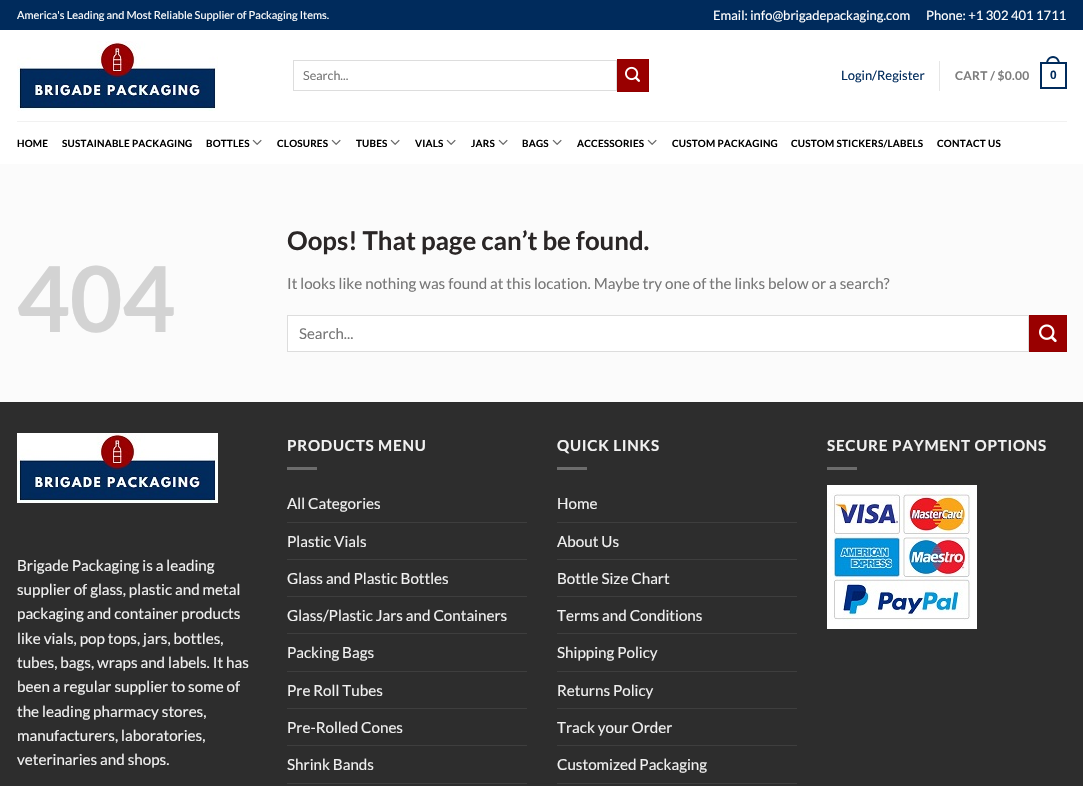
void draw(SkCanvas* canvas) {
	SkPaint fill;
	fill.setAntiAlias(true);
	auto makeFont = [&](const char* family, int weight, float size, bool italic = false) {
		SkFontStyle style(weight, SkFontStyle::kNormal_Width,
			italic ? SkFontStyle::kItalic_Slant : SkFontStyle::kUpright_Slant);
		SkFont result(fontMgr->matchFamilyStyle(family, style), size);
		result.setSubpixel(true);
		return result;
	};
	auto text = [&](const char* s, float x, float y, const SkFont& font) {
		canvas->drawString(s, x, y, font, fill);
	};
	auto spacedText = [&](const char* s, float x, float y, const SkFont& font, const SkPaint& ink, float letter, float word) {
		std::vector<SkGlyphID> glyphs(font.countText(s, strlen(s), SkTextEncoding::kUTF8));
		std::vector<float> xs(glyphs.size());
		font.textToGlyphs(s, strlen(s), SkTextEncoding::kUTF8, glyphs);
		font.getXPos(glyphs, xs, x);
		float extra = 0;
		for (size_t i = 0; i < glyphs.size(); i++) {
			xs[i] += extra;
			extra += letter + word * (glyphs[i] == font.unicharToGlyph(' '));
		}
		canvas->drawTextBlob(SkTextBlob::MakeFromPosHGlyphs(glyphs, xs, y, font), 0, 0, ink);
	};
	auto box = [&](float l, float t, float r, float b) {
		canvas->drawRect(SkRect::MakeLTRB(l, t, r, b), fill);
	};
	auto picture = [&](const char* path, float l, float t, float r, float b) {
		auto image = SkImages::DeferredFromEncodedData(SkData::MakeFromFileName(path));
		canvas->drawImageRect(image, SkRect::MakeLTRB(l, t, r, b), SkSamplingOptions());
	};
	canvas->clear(0xFFFBFBFB);
	fill.setColor(0xFF002B5C);
	box(0, 0, 1083, 30);
	fill.setColor(0xFFFFFFFF);
	box(0, 30, 1083, 164);
	picture("image0.png", 17, 41, 218, 111);
	fill.setStyle(SkPaint::kStroke_Style);
	fill.setStrokeWidth(1);
	fill.setColor(0xFFDDDDDD);
	canvas->drawRect(SkRect::MakeLTRB(293.5f, 60.5f, 616.5f, 90.5f), fill);
	fill.setStyle(SkPaint::kFill_Style);
	fill.setColor(0xFF990000);
	canvas->drawRect(SkRect::MakeLTRB(617.5f, 59.5f, 648.5f, 91.5f), fill);
	fill.setStyle(SkPaint::kStroke_Style);
	fill.setColor(0xFF910000);
	canvas->drawRect(SkRect::MakeLTRB(617.5f, 59.5f, 648.5f, 91.5f), fill);
	picture("image1.png", 625, 66, 640, 82);
	fill.setStyle(SkPaint::kFill_Style);
	fill.setColor(0xFFE6E6E6);
	box(939, 61, 940, 91);
	fill.setStyle(SkPaint::kStroke_Style);
	fill.setStrokeWidth(2);
	fill.setColor(0xFF002B5C);
	canvas->drawRect(SkRect::MakeLTRB(1041, 63, 1066, 88), fill);
	fill.setStyle(SkPaint::kFill_Style);
	canvas->drawPath(SkPathBuilder(SkPathFillType::kEvenOdd).moveTo(1053, 56).cubicTo(1057.5f, 56, 1060, 60, 1060, 64).lineTo(1046, 64).cubicTo(1046, 60, 1048.5f, 56, 1053, 56).close().moveTo(1053, 58).cubicTo(1056.5f, 58, 1058, 61, 1058, 64).lineTo(1048, 64).cubicTo(1048, 61, 1049.5f, 58, 1053, 58).close().detach(), fill);
	fill.setColor(0xFFF1F1F1);
	box(17, 121, 1067, 122);
	picture("image2.png", 252, 139, 262, 145);
	picture("image2.png", 331, 139, 341, 145);
	picture("image2.png", 390, 139, 400, 145);
	picture("image2.png", 446, 139, 456, 145);
	picture("image2.png", 498, 139, 508, 145);
	picture("image2.png", 552, 139, 562, 145);
	picture("image2.png", 647, 139, 657, 145);
	fill.setColor(0xFFFFFFFF);
	canvas->drawRect(SkRect::MakeLTRB(287.5f, 315.5f, 1028.5f, 351.5f), fill);
	fill.setStyle(SkPaint::kStroke_Style);
	fill.setStrokeWidth(1);
	fill.setColor(0xFFDDDDDD);
	canvas->drawRect(SkRect::MakeLTRB(287.5f, 315.5f, 1028.5f, 351.5f), fill);
	fill.setStyle(SkPaint::kFill_Style);
	fill.setColor(0xFF990000);
	canvas->drawRect(SkRect::MakeLTRB(1029.5f, 315.5f, 1066.5f, 351.5f), fill);
	fill.setStyle(SkPaint::kStroke_Style);
	fill.setColor(0xFF910000);
	canvas->drawRect(SkRect::MakeLTRB(1029.5f, 315.5f, 1066.5f, 351.5f), fill);
	picture("image3.png", 1039, 324, 1057, 343);
	fill.setStyle(SkPaint::kFill_Style);
	fill.setColor(0xFF2D2D2D);
	box(0, 403, 1083, 786);
	fill.setColor(0xFF2B2B2B);
	box(0, 402, 1083, 403);
	fill.setColor(0xFF6C6C6C);
	box(287, 467, 317, 470);
	fill.setColor(0xFF3E3E3E);
	box(287, 522, 527, 523);
	box(287, 559, 527, 560);
	box(287, 596, 527, 597);
	box(287, 633, 527, 634);
	box(287, 671, 527, 672);
	box(287, 708, 527, 709);
	box(287, 745, 527, 746);
	box(287, 783, 527, 784);
	fill.setColor(0xFF6C6C6C);
	box(557, 467, 587, 470);
	fill.setColor(0xFF3E3E3E);
	box(557, 522, 797, 523);
	box(557, 559, 797, 560);
	box(557, 596, 797, 597);
	box(557, 633, 797, 634);
	box(557, 671, 797, 672);
	box(557, 708, 797, 709);
	box(557, 745, 797, 746);
	box(557, 783, 797, 784);
	fill.setColor(0xFF6C6C6C);
	box(827, 467, 857, 470);
	picture("image4.png", 827, 485, 977, 629);
	picture("image0.png", 17, 433, 218, 503);
	auto font1 = makeFont("Lato", 400, 11);
	fill.setColor(0xFFFFFFFF);
	text("America's Leading and Most Reliable Supplier of Packaging Items.", 17, 19, font1);
	auto font2 = makeFont("Lato", 400, 13);
	text("Email: info@brigadepackaging.com", 713, 20, font2);
	text("Phone: +1 302 401 1711", 926, 20, font2);
	auto font3 = makeFont("Lato", 400, 12.5f);
	fill.setColor(0xFF777777);
	text("Search...", 303, 80, font3);
	fill.setColor(0xFF002B5C);
	text("Login/Register", 841, 80, font2);
	auto font4 = makeFont("Lato", 700, 12);
	fill.setColor(0xFF7D7D7D);
	spacedText("CART / $0.00", 955, 80, font4, fill, 0.25f, 0);
	auto font5 = makeFont("Liberation Sans", 700, 12);
	fill.setColor(0xFF002B5C);
	spacedText("0", 1050, 79, font5, fill, 0.25f, 0);
	auto font6 = makeFont("Lato", 700, 9.9f);
	fill.setColor(0xFF000000);
	spacedText("HOME", 17, 147, font6, fill, 0.2f, 0);
	spacedText("SUSTAINABLE PACKAGING", 62, 147, font6, fill, 0.2f, 0);
	spacedText("BOTTLES", 206, 147, font6, fill, 0.2f, 0);
	spacedText("CLOSURES", 277, 147, font6, fill, 0.2f, 0);
	spacedText("TUBES", 356, 147, font6, fill, 0.2f, 0);
	spacedText("VIALS", 415, 147, font6, fill, 0.2f, 0);
	spacedText("JARS", 471, 147, font6, fill, 0.2f, 0);
	spacedText("BAGS", 522, 147, font6, fill, 0.2f, 0);
	spacedText("ACCESSORIES", 577, 147, font6, fill, 0.2f, 0);
	spacedText("CUSTOM PACKAGING", 672, 147, font6, fill, 0.2f, 0);
	spacedText("CUSTOM STICKERS/LABELS", 791, 147, font6, fill, 0.2f, 0);
	spacedText("CONTACT US", 937, 147, font6, fill, 0.2f, 0);
	auto font7 = makeFont("Lato", 700, 91);
	fill.setColor(0xFFD3D3D3);
	text("404", 17, 332, font7);
	auto font8 = makeFont("Lato", 700, 25.8f);
	fill.setColor(0xFF2A2626);
	text("Oops! That page can’t be found.", 287, 250, font8);
	auto font9 = makeFont("Lato", 400, 15.2f);
	fill.setColor(0xFF777777);
	text("It looks like nothing was found at this location. Maybe try one of the links below or a search?", 287, 289, font9);
	auto font10 = makeFont("Lato", 400, 15);
	text("Search...", 299, 339, font10);
	auto font11 = makeFont("Lato", 700, 15.2f);
	fill.setColor(0xFFF1F1F1);
	spacedText("PRODUCTS MENU", 287, 451, font11, fill, 0.75f, 0);
	text("All Categories", 287, 509, font9);
	text("Plastic Vials", 287, 547, font9);
	text("Glass and Plastic Bottles", 287, 584, font9);
	text("Glass/Plastic Jars and Containers", 287, 621, font9);
	text("Packing Bags", 287, 658, font9);
	text("Pre Roll Tubes", 287, 696, font9);
	text("Pre-Rolled Cones", 287, 733, font9);
	text("Shrink Bands", 287, 770, font9);
	spacedText("QUICK LINKS", 557, 451, font11, fill, 0.75f, 0);
	text("Home", 557, 509, font9);
	text("About Us", 557, 547, font9);
	text("Bottle Size Chart", 557, 584, font9);
	text("Terms and Conditions", 557, 621, font9);
	text("Shipping Policy", 557, 658, font9);
	text("Returns Policy", 557, 696, font9);
	text("Track your Order", 557, 733, font9);
	text("Customized Packaging", 557, 770, font9);
	spacedText("SECURE PAYMENT OPTIONS", 827, 451, font11, fill, 0.75f, 0);
	text("Brigade Packaging is a leading", 17, 571, font9);
	text("supplier of glass, plastic and metal", 17, 595, font9);
	text("packaging and container products", 17, 619, font9);
	text("like vials, pop tops, jars, bottles,", 17, 644, font9);
	text("tubes, bags, wraps and labels. It has", 17, 668, font9);
	text("been a regular supplier to some of", 17, 692, font9);
	text("the leading pharmacy stores,", 17, 717, font9);
	text("manufacturers, laboratories,", 17, 741, font9);
	text("veterinaries and shops.", 17, 765, font9);
}
